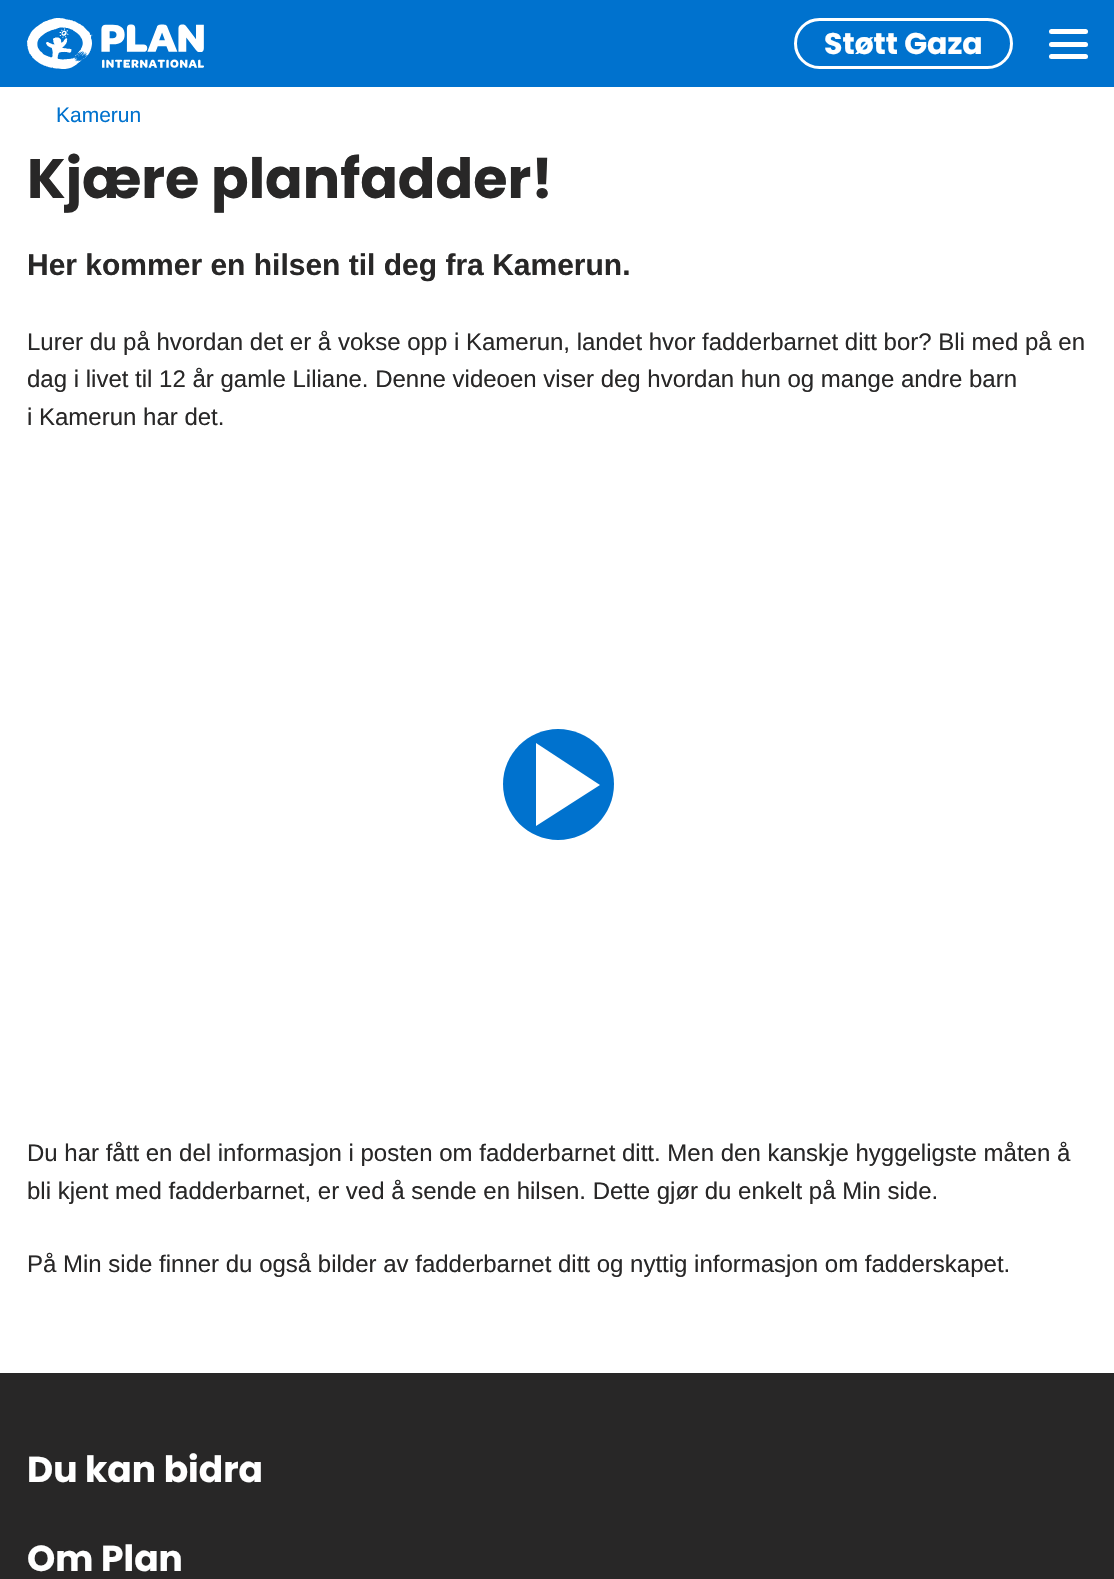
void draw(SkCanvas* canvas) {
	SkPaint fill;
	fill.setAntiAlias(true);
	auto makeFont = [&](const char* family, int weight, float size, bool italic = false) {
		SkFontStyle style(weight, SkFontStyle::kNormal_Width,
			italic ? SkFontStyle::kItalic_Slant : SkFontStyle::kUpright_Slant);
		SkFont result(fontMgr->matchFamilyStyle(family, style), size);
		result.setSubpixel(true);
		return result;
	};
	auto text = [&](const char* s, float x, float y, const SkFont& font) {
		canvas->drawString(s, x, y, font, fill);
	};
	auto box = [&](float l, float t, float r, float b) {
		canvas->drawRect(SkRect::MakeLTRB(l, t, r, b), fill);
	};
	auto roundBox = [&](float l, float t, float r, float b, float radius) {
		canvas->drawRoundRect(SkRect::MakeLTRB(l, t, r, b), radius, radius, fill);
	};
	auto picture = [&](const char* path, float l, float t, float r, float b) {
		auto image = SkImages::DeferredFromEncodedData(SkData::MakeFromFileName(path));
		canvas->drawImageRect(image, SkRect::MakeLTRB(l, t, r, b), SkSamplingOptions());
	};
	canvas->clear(0xFFFFFFFF);
	fill.setColor(0xFF0072CE);
	box(0, 0, 1114, 87);
	picture("image0.png", 27, 18, 204, 69);
	fill.setStyle(SkPaint::kStroke_Style);
	fill.setStrokeWidth(3);
	fill.setColor(0xFFFFFFFF);
	canvas->drawRoundRect(SkRect::MakeLTRB(795.5f, 19.5f, 1011.5f, 67.5f), 24, 24, fill);
	fill.setStyle(SkPaint::kFill_Style);
	roundBox(1049, 29, 1088, 34, 2.5f);
	roundBox(1049, 42, 1088, 47, 2.5f);
	roundBox(1049, 54, 1088, 59, 2.5f);
	fill.setColor(0xFF0072CE);
	canvas->drawPath(SkPathBuilder().moveTo(558, 729).cubicTo(528, 729, 503, 754, 503, 784).cubicTo(503, 815, 528, 840, 558, 840).cubicTo(589, 840, 614, 815, 614, 784).cubicTo(614, 754, 589, 729, 558, 729).close().detach(), fill);
	fill.setColor(0xFFFFFFFF);
	canvas->drawPath(SkPathBuilder(SkPathFillType::kEvenOdd).moveTo(536, 743).lineTo(536, 826).lineTo(600, 785).close().detach(), fill);
	fill.setColor(0xFF282727);
	box(0, 1373, 1114, 1579);
	auto font1 = makeFont("Poppins", 700, 30);
	fill.setColor(0xFFFFFFFF);
	text("Støtt Gaza", 824, 54, font1);
	auto font2 = makeFont("Liberation Sans", 400, 21);
	fill.setColor(0xFF0072CE);
	text("Kamerun", 56, 122, font2);
	auto font3 = makeFont("Poppins", 700, 55.5f);
	fill.setColor(0xFF282727);
	text("Kjære planfadder!", 27, 198, font3);
	auto font4 = makeFont("Liberation Sans", 700, 30);
	text("Her kommer en hilsen til deg fra Kamerun.", 27, 275, font4);
	auto font5 = makeFont("Liberation Sans", 400, 24);
	text("Lurer du på hvordan det er å vokse opp i Kamerun, landet hvor fadderbarnet ditt bor? Bli med på en", 27, 350, font5);
	text("dag i livet til 12 år gamle Liliane. Denne videoen viser deg hvordan hun og mange andre barn", 27, 387, font5);
	text("i Kamerun har det.", 27, 425, font5);
	text("Du har fått en del informasjon i posten om fadderbarnet ditt. Men den kanskje hyggeligste måten å", 27, 1161, font5);
	text("bli kjent med fadderbarnet, er ved å sende en hilsen. Dette gjør du enkelt på Min side.", 27, 1199, font5);
	text("På Min side finner du også bilder av fadderbarnet ditt og nyttig informasjon om fadderskapet.", 27, 1272, font5);
	auto font6 = makeFont("Poppins", 700, 36);
	fill.setColor(0xFFFFFFFF);
	text("Du kan bidra", 27, 1482, font6);
	text("Om Plan", 27, 1571, font6);
}
